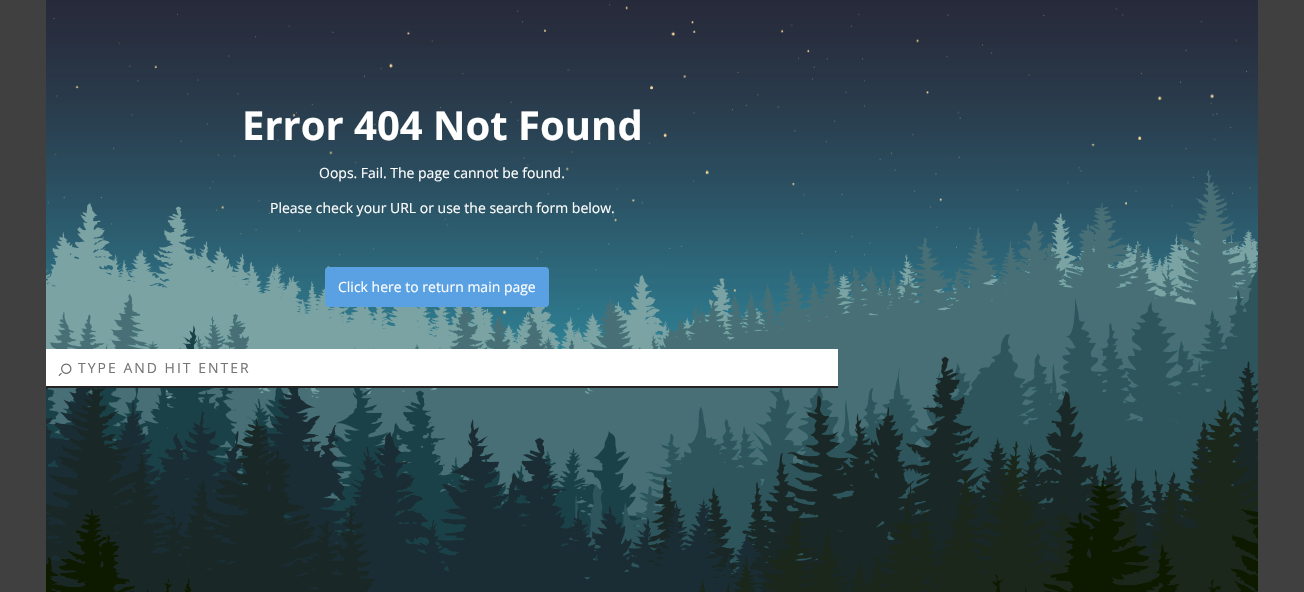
void draw(SkCanvas* canvas) {
	SkPaint fill;
	fill.setAntiAlias(true);
	auto makeFont = [&](const char* family, int weight, float size, bool italic = false) {
		SkFontStyle style(weight, SkFontStyle::kNormal_Width,
			italic ? SkFontStyle::kItalic_Slant : SkFontStyle::kUpright_Slant);
		SkFont result(fontMgr->matchFamilyStyle(family, style), size);
		result.setSubpixel(true);
		return result;
	};
	auto text = [&](const char* s, float x, float y, const SkFont& font) {
		canvas->drawString(s, x, y, font, fill);
	};
	auto spacedText = [&](const char* s, float x, float y, const SkFont& font, const SkPaint& ink, float letter, float word) {
		std::vector<SkGlyphID> glyphs(font.countText(s, strlen(s), SkTextEncoding::kUTF8));
		std::vector<float> xs(glyphs.size());
		font.textToGlyphs(s, strlen(s), SkTextEncoding::kUTF8, glyphs);
		font.getXPos(glyphs, xs, x);
		float extra = 0;
		for (size_t i = 0; i < glyphs.size(); i++) {
			xs[i] += extra;
			extra += letter + word * (glyphs[i] == font.unicharToGlyph(' '));
		}
		canvas->drawTextBlob(SkTextBlob::MakeFromPosHGlyphs(glyphs, xs, y, font), 0, 0, ink);
	};
	auto box = [&](float l, float t, float r, float b) {
		canvas->drawRect(SkRect::MakeLTRB(l, t, r, b), fill);
	};
	auto roundBox = [&](float l, float t, float r, float b, float radius) {
		canvas->drawRoundRect(SkRect::MakeLTRB(l, t, r, b), radius, radius, fill);
	};
	auto picture = [&](const char* path, float l, float t, float r, float b) {
		auto image = SkImages::DeferredFromEncodedData(SkData::MakeFromFileName(path));
		canvas->drawImageRect(image, SkRect::MakeLTRB(l, t, r, b), SkSamplingOptions());
	};
	canvas->clear(0xFF404040);
	picture("image0.png", 46, 0, 1258, 349);
	picture("image2.png", 46, 170, 1258, 592);
	fill.setColor(0xFF5AA1E3);
	roundBox(325, 267, 549, 307, 4);
	fill.setColor(0xFFFFFFFF);
	box(46, 349, 838, 386);
	picture("image1.png", 58, 363, 72, 376);
	fill.setColor(0xFF232323);
	box(46, 386, 838, 388);
	auto font1 = makeFont("Open Sans", 700, 40);
	fill.setColor(0xFFFFFFFF);
	text("Error 404 Not Found", 242, 140, font1);
	auto font2 = makeFont("Open Sans", 400, 14);
	text("Oops. Fail. The page cannot be found.", 319, 178, font2);
	text("Please check your URL or use the search form below.", 270, 213, font2);
	text("Click here to return main page", 338, 292, font2);
	fill.setColor(0xFF757575);
	spacedText("TYPE AND HIT ENTER", 78, 373, font2, fill, 2, 0);
}
